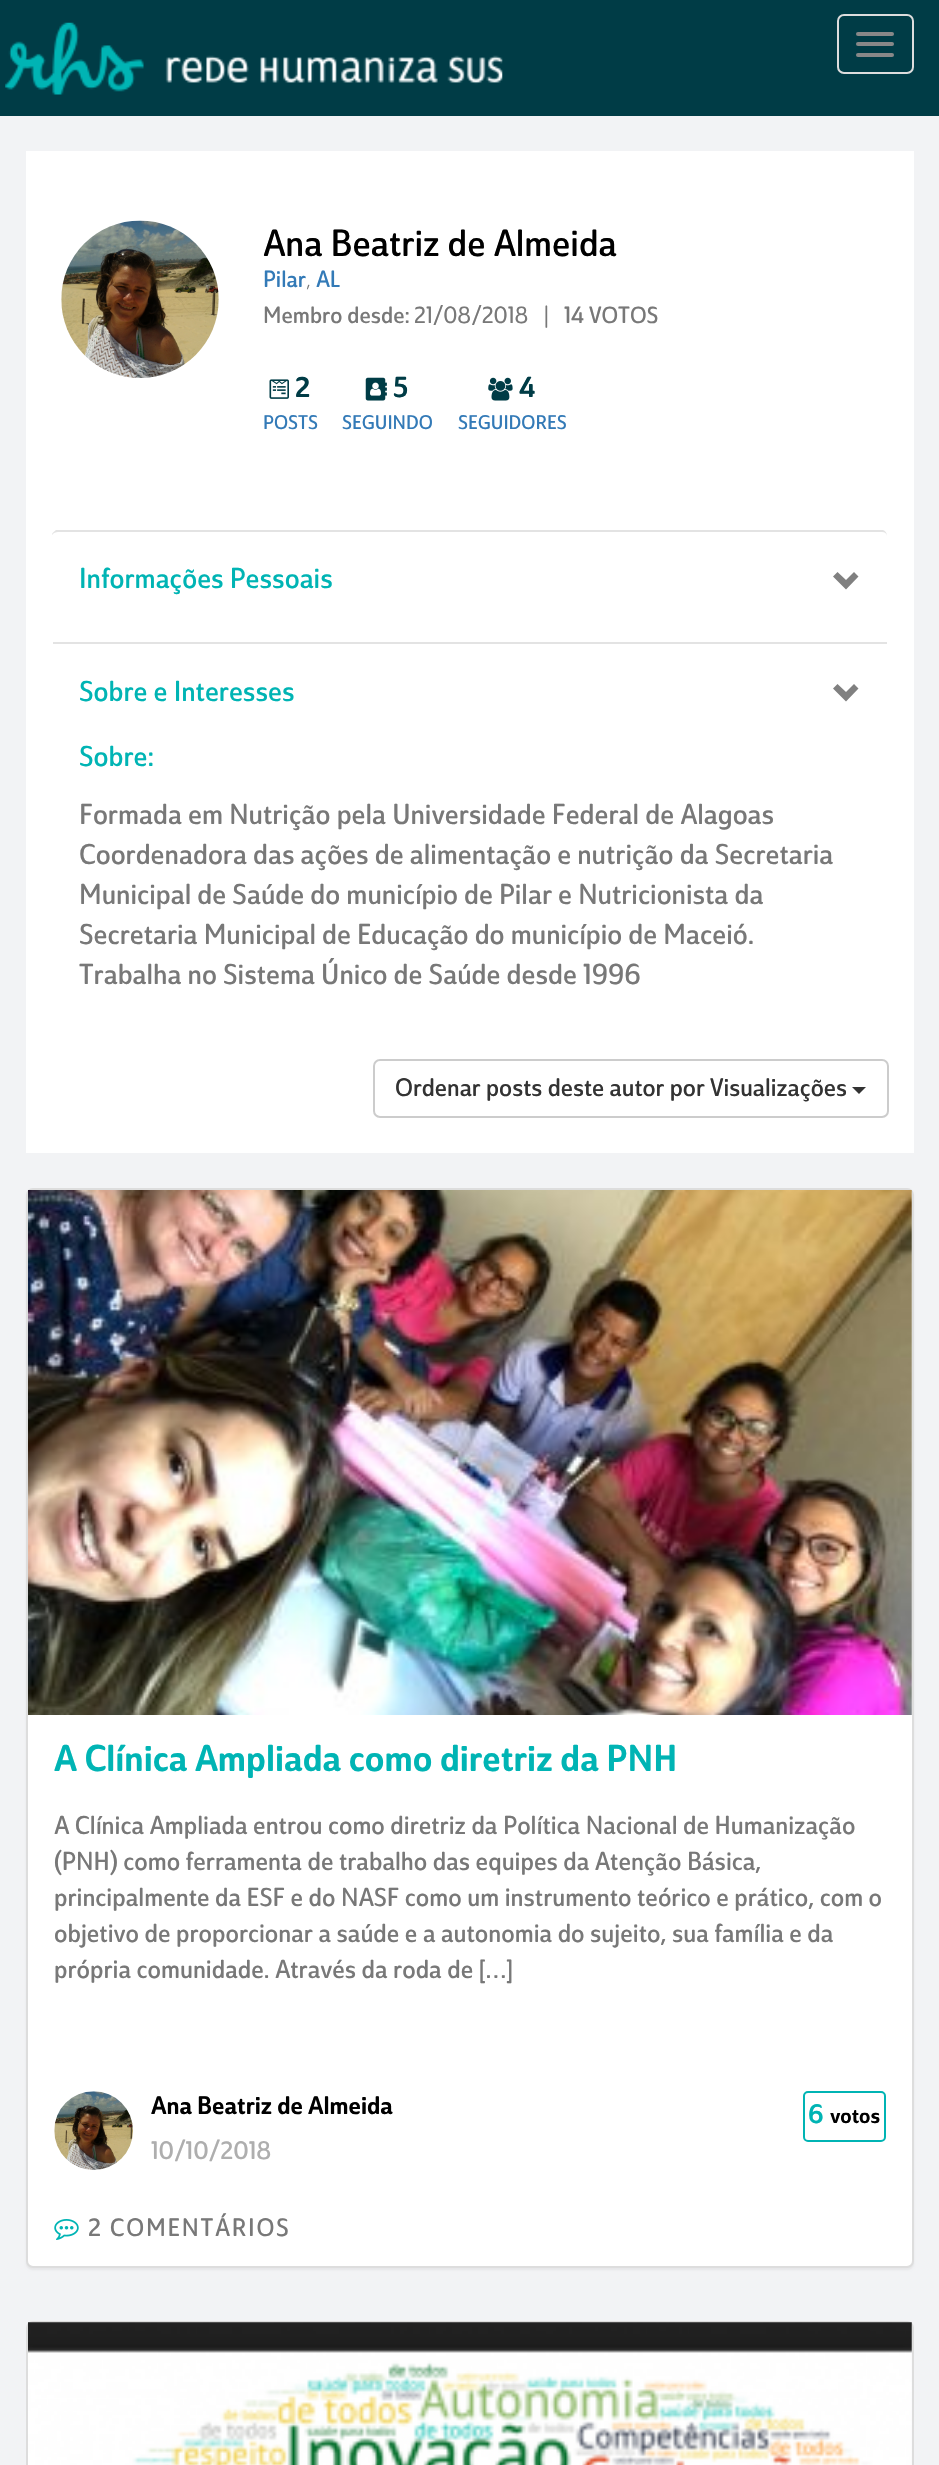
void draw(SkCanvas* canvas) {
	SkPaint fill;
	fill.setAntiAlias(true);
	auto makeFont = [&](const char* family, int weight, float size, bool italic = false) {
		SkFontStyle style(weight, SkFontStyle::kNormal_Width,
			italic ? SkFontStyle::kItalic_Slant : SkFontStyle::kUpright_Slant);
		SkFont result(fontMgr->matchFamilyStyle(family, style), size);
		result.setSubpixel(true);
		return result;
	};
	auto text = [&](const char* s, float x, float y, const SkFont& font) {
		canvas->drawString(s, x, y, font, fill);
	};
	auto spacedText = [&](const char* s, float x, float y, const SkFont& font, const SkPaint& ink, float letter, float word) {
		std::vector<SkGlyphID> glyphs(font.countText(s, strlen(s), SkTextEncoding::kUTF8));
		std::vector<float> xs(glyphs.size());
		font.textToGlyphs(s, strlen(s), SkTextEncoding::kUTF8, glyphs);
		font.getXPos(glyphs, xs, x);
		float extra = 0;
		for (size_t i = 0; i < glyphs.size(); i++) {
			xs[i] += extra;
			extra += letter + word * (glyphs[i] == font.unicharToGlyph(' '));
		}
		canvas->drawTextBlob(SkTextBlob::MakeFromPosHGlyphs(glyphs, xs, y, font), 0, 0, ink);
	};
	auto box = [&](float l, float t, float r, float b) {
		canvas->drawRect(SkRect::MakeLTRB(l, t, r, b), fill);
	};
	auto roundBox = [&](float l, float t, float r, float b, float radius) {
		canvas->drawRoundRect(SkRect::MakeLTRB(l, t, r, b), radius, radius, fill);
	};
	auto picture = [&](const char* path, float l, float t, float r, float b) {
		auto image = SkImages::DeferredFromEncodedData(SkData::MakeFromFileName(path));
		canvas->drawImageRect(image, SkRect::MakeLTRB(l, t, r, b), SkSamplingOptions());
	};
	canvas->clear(0xFFF2F3F5);
	fill.setColor(0xFF003C46);
	box(0, 0, 939, 116);
	picture("image0.png", 5, 22, 503, 95);
	fill.setStyle(SkPaint::kStroke_Style);
	fill.setStrokeWidth(2);
	fill.setColor(0xFFDDDDDD);
	canvas->drawRoundRect(SkRect::MakeLTRB(838, 15, 913, 73), 6, 6, fill);
	fill.setStyle(SkPaint::kFill_Style);
	fill.setColor(0xFF888888);
	roundBox(856, 32, 894, 36, 2);
	roundBox(856, 42, 894, 46, 2);
	roundBox(856, 53, 894, 57, 2);
	fill.setColor(0xFFFFFFFF);
	box(26, 151, 914, 1153);
	picture("image1.png", 61, 220, 219, 378);
	picture("image2.png", 269, 379, 289, 399);
	picture("image3.png", 365, 377, 387, 401);
	picture("image4.png", 488, 377, 513, 401);
	fill.setColor(0xFFE3E3E3);
	canvas->drawPath(SkPathBuilder().moveTo(58, 532).cubicTo(56, 532, 53, 533, 52, 535).lineTo(52, 534).cubicTo(53, 532, 55, 531, 56, 530).lineTo(883, 530).cubicTo(886, 531, 887, 534, 887, 536).cubicTo(887, 534, 885, 532, 882, 532).close().detach(), fill);
	fill.setColor(0xFF808080);
	canvas->drawPath(SkPathBuilder().moveTo(858.5f, 576.5f).lineTo(846, 589.5f).lineTo(833, 576.5f).lineTo(837.5f, 572).lineTo(846, 580).lineTo(854, 572).close().detach(), fill);
	fill.setColor(0xFFE3E3E3);
	box(53, 642, 887, 644);
	fill.setColor(0xFF808080);
	canvas->drawPath(SkPathBuilder().moveTo(858.5f, 688.5f).lineTo(846, 701.5f).lineTo(833, 688.5f).lineTo(837.5f, 684).lineTo(846, 692).lineTo(854, 684).close().detach(), fill);
	fill.setStyle(SkPaint::kStroke_Style);
	fill.setColor(0xFFCCCCCC);
	canvas->drawRoundRect(SkRect::MakeLTRB(374, 1060, 888, 1117), 6, 6, fill);
	fill.setStyle(SkPaint::kFill_Style);
	fill.setColor(0xFF333333);
	canvas->drawPath(SkPathBuilder().moveTo(852, 1087).lineTo(866, 1087).lineTo(859, 1094).close().detach(), fill);
	fill.setColor(0x0D000000);
	fill.setMaskFilter(SkMaskFilter::MakeBlur(kNormal_SkBlurStyle, 1));
	canvas->drawRoundRect(SkRect::MakeLTRB(26, 1190, 914, 2270), 7, 7, fill);
	fill.setMaskFilter(nullptr);
	fill.setColor(0xFFFFFFFF);
	canvas->drawRoundRect(SkRect::MakeLTRB(27, 1189, 913, 2267), 6, 6, fill);
	fill.setStyle(SkPaint::kStroke_Style);
	fill.setColor(0xFFDDDDDD);
	canvas->drawRoundRect(SkRect::MakeLTRB(27, 1189, 913, 2267), 6, 6, fill);
	fill.setStyle(SkPaint::kFill_Style);
	fill.setColor(0xFFFFFFFF);
	canvas->drawPath(SkPathBuilder().moveTo(33, 1190).lineTo(907, 1190).cubicTo(910, 1190, 912, 1192, 912, 1195).lineTo(912, 1717).lineTo(28, 1717).lineTo(28, 1195).cubicTo(28, 1192, 30, 1190, 33, 1190).close().detach(), fill);
	picture("image5.png", 28, 1190, 912, 1715);
	picture("image6.png", 54, 2091, 133, 2170);
	fill.setStyle(SkPaint::kStroke_Style);
	fill.setColor(0xFF00B4B4);
	canvas->drawRoundRect(SkRect::MakeLTRB(804, 2092, 885, 2141), 4, 4, fill);
	picture("image7.png", 54, 2219, 79, 2240);
	fill.setColor(0xFFDDDDDD);
	canvas->drawRoundRect(SkRect::MakeLTRB(27, 2322, 913, 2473), 6, 6, fill);
	picture("image8.png", 28, 2322, 912, 2465);
	auto font1 = makeFont("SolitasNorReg", 400, 36.75f);
	fill.setStyle(SkPaint::kFill_Style);
	fill.setColor(0xFF000000);
	text("Ana Beatriz de Almeida", 263, 256, font1);
	auto font2 = makeFont("SolitasNorReg", 400, 22.75f);
	fill.setColor(0xFF337AB7);
	text("Pilar", 263, 287, font2);
	auto font3 = makeFont("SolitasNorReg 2", 400, 22.75f);
	fill.setColor(0xFF787878);
	text(",", 306, 287, font3);
	fill.setColor(0xFF337AB7);
	text("AL", 316, 287, font2);
	fill.setColor(0xFF787878);
	text("Membro desde:", 263, 323, font2);
	auto font4 = makeFont("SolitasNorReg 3", 400, 22.75f);
	text("21/08/2018", 414, 323, font4);
	text("|", 544, 323, font4);
	text("14 VOTOS", 564, 323, font2);
	auto font5 = makeFont("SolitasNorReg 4", 400, 28);
	fill.setColor(0xFF003C46);
	text("2", 295, 397, font5);
	auto font6 = makeFont("SolitasNorReg", 400, 19.25f);
	fill.setColor(0xFF337AB7);
	text("POSTS", 263, 429, font6);
	fill.setColor(0xFF003C46);
	text("5", 393, 397, font5);
	fill.setColor(0xFF337AB7);
	text("SEGUINDO", 342, 429, font6);
	fill.setColor(0xFF003C46);
	text("4", 519, 397, font5);
	fill.setColor(0xFF337AB7);
	text("SEGUIDORES", 458, 429, font6);
	auto font7 = makeFont("SolitasNorReg", 400, 28);
	fill.setColor(0xFF00B4B4);
	text("Informações Pessoais", 79, 588, font7);
	text("Sobre e Interesses", 79, 701, font7);
	text("Sobre:", 79, 766, font7);
	fill.setColor(0xFF787878);
	text("Formada em Nutrição pela Universidade Federal de Alagoas", 79, 824, font7);
	text("Coordenadora das ações de alimentação e nutrição da Secretaria", 79, 864, font7);
	text("Municipal de Saúde do município de Pilar e Nutricionista da", 79, 904, font7);
	text("Secretaria Municipal de Educação do município de Maceió.", 79, 944, font7);
	text("Trabalha no Sistema Único de Saúde desde 1996", 79, 984, font7);
	auto font8 = makeFont("SolitasNorReg", 400, 24.5f);
	fill.setColor(0xFF333333);
	text("Ordenar posts deste autor por Visualizações", 395, 1096, font8);
	auto font9 = makeFont("SolitasNorReg 4", 400, 36.4f);
	fill.setColor(0xFF00B4B4);
	text("A Clínica Ampliada como diretriz da PNH", 54, 1771, font9);
	auto font10 = makeFont("SolitasNorReg", 400, 25.2f);
	fill.setColor(0xFF787878);
	text("A Clínica Ampliada entrou como diretriz da Política Nacional de Humanização", 54, 1834, font10);
	text("(PNH) como ferramenta de trabalho das equipes da Atenção Básica,", 54, 1870, font10);
	text("principalmente da ESF e do NASF como um instrumento teórico e prático, com o", 54, 1906, font10);
	text("objetivo de proporcionar a saúde e a autonomia do sujeito, sua família e da", 54, 1942, font10);
	text("própria comunidade. Através da roda de […]", 54, 1978, font10);
	auto font11 = makeFont("SolitasNorReg 4", 400, 24.5f);
	fill.setColor(0xFF000000);
	text("Ana Beatriz de Almeida", 151, 2114, font11);
	fill.setColor(0xFFAEAEAE);
	text("10/10/2018", 151, 2159, font8);
	auto font12 = makeFont("SolitasNorReg 4", 400, 26);
	fill.setColor(0xFF00B4B4);
	text("6", 808, 2123, font12);
	auto font13 = makeFont("SolitasNorReg 4", 400, 21);
	fill.setColor(0xFF000000);
	text("votos", 830, 2123, font13);
	fill.setColor(0xFF787878);
	spacedText("2 COMENTÁRIOS", 88, 2236, font8, fill, 1.75f, 0);
}
